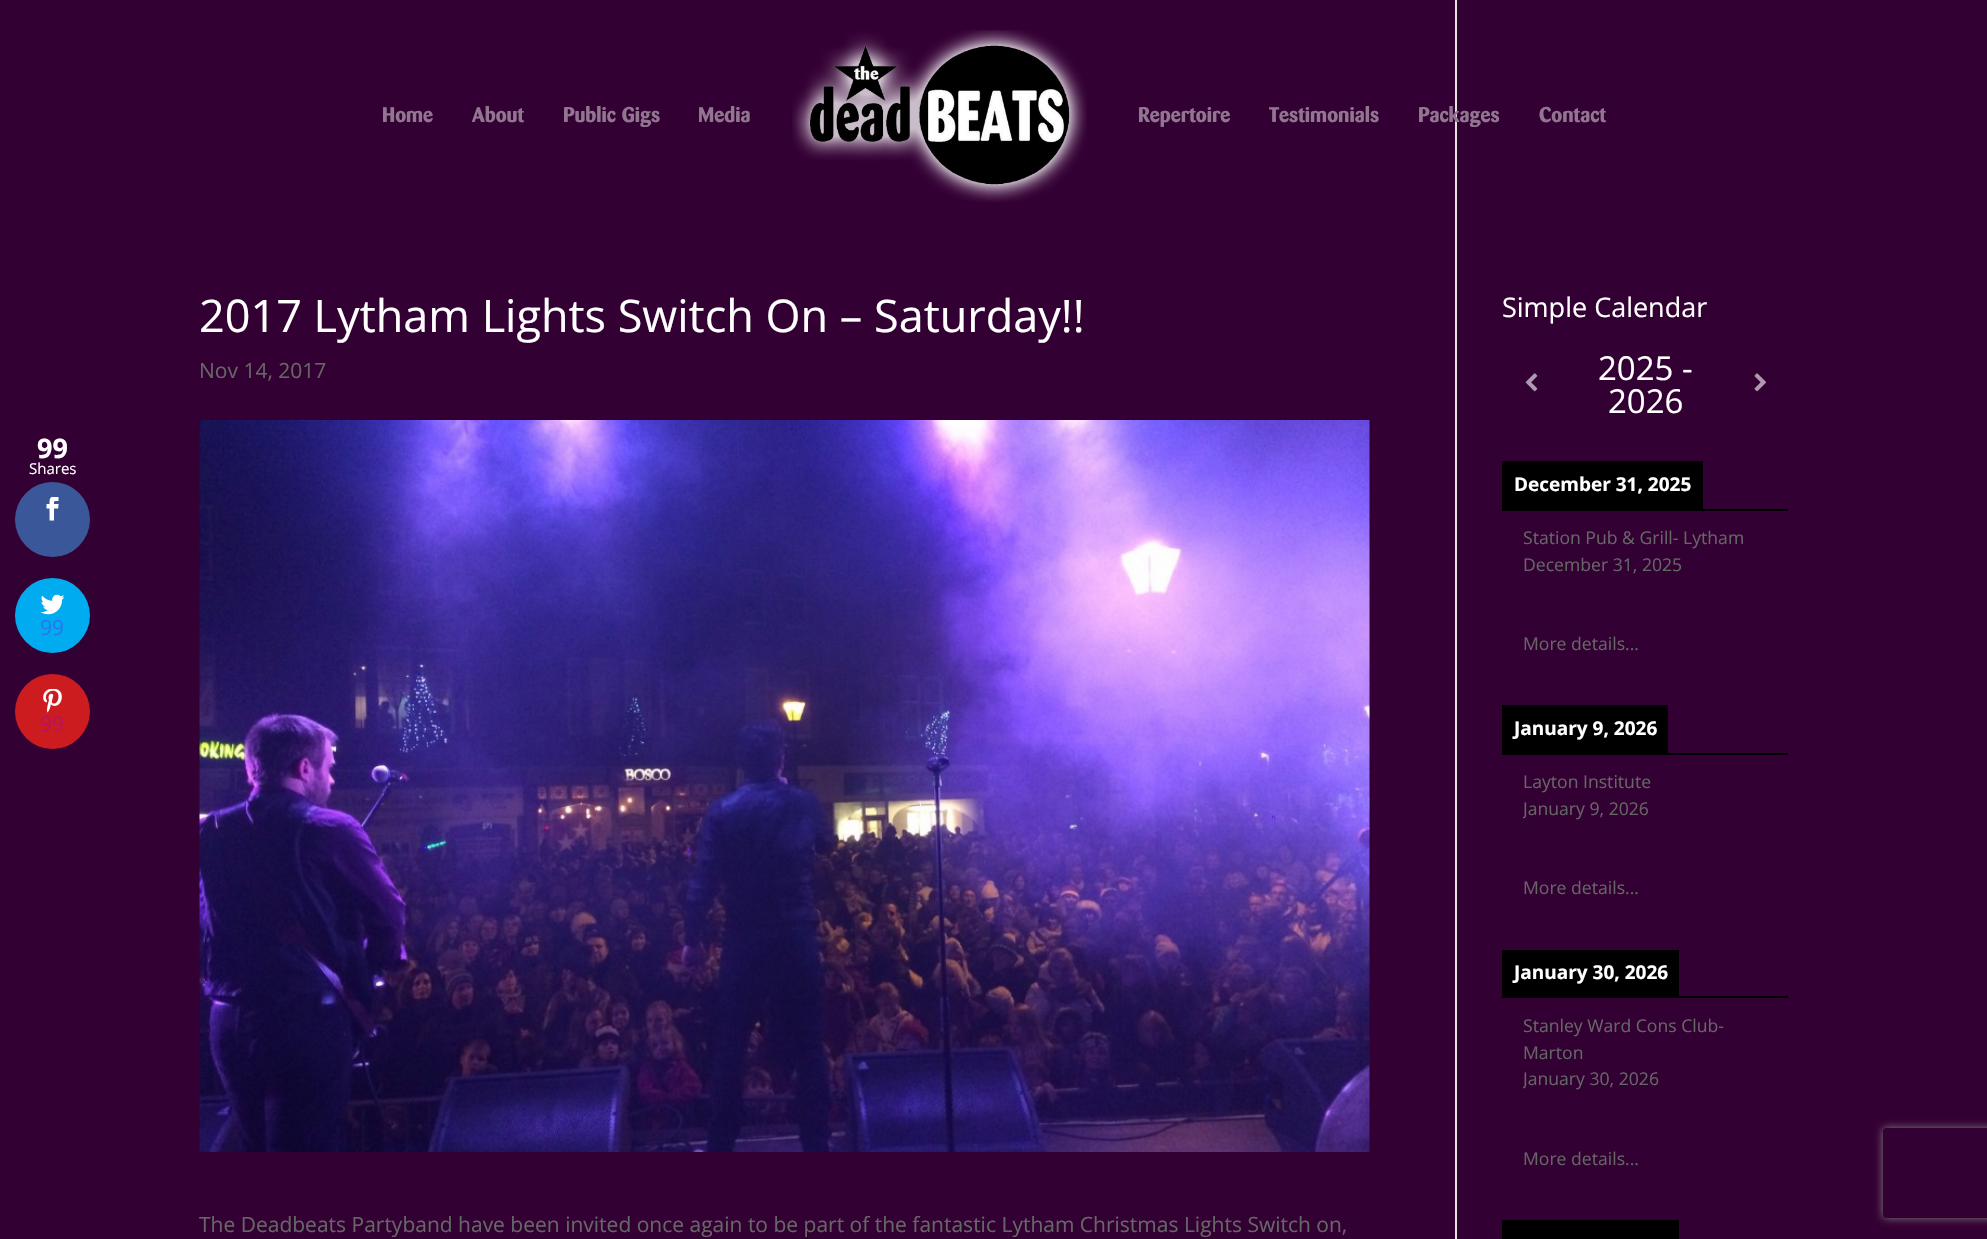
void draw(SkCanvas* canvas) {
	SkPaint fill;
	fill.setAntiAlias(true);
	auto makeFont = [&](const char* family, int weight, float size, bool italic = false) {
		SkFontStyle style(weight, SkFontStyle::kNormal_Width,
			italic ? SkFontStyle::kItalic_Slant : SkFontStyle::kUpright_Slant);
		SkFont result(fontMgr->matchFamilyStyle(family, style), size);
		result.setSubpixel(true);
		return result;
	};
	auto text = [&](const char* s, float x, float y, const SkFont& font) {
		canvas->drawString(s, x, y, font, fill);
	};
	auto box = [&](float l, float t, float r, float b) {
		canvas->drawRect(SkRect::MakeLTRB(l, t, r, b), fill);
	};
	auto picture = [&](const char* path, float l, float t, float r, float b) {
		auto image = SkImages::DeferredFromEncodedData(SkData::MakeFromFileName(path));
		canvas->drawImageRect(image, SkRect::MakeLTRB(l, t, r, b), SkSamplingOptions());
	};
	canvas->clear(0xFF330033);
	fill.setColor(0xFF3A579A);
	canvas->drawCircle(52.5f, 519.5f, 37.5f, fill);
	picture("image0.png", 46, 497, 59, 521);
	fill.setColor(0xFF00ABF0);
	canvas->drawCircle(52.5f, 615.5f, 37.5f, fill);
	picture("image1.png", 40, 594, 65, 615);
	fill.setColor(0xFFCD1C1F);
	canvas->drawCircle(52.5f, 711.5f, 37.5f, fill);
	picture("image2.png", 43, 689, 62, 713);
	picture("image3.png", 792, 30, 1087, 202);
	fill.setColor(0xFFE2E2E2);
	box(1455, 0, 1457, 1239);
	picture("image4.png", 199, 420, 1370, 1152);
	picture("image5.png", 1525, 373, 1538, 392);
	picture("image6.png", 1754, 373, 1766, 392);
	fill.setColor(0xFF000000);
	box(1502, 509, 1788, 511);
	box(1502, 461, 1703, 509);
	box(1502, 753, 1788, 755);
	box(1502, 705, 1668, 753);
	box(1502, 996, 1788, 998);
	box(1502, 950, 1679, 996);
	box(1502, 1220, 1679, 1239);
	canvas->save();
	canvas->clipPath(SkPathBuilder(SkPathFillType::kEvenOdd).moveTo(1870, 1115).lineTo(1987, 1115).lineTo(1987, 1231).lineTo(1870, 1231).close().moveTo(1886, 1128).lineTo(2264, 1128).cubicTo(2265.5f, 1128, 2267, 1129.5f, 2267, 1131).lineTo(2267, 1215).cubicTo(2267, 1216.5f, 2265.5f, 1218, 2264, 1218).lineTo(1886, 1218).cubicTo(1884.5f, 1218, 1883, 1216.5f, 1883, 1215).lineTo(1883, 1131).cubicTo(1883, 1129.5f, 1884.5f, 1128, 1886, 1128).close().detach(), true);
	fill.setColor(0xFF808080);
	fill.setMaskFilter(SkMaskFilter::MakeBlur(kNormal_SkBlurStyle, 4));
	canvas->drawRoundRect(SkRect::MakeLTRB(1883, 1128, 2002, 1218), 3, 3, fill);
	fill.setMaskFilter(nullptr);
	canvas->restore();
	auto font1 = makeFont("Open Sans", 700, 27);
	fill.setColor(0xFFFFFFFF);
	text("99", 37, 458, font1);
	auto font2 = makeFont("Open Sans", 400, 15);
	text("Shares", 29, 474, font2);
	auto font3 = makeFont("Open Sans", 400, 21);
	fill.setColor(0xFF2976EE);
	text("99", 40, 635, font3);
	fill.setColor(0xFFB6135E);
	text("99", 40, 731, font3);
	auto font4 = makeFont("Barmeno", 700, 21);
	fill.setColor(0xFF917591);
	text("Home", 382, 122, font4);
	text("About", 472, 122, font4);
	text("Public Gigs", 563, 122, font4);
	text("Media", 698, 122, font4);
	text("Repertoire", 1138, 122, font4);
	text("Testimonials", 1269, 122, font4);
	text("Packages", 1418, 122, font4);
	text("Contact", 1539, 122, font4);
	auto font5 = makeFont("Open Sans", 400, 45);
	fill.setColor(0xFFFFFFFF);
	text("2017 Lytham Lights Switch On – Saturday!!", 199, 332, font5);
	fill.setColor(0xFF666666);
	text("Nov 14, 2017", 199, 378, font3);
	text("The Deadbeats Partyband have been invited once again to be part of the fantastic Lytham Christmas Lights Switch on,", 199, 1232, font3);
	auto font6 = makeFont("Open Sans", 400, 27);
	fill.setColor(0xFFFFFFFF);
	text("Simple Calendar", 1502, 317, font6);
	auto font7 = makeFont("Open Sans", 400, 33);
	text("2025 -", 1598, 380, font7);
	text("2026", 1608, 413, font7);
	auto font8 = makeFont("Open Sans", 700, 19);
	text("December 31, 2025", 1514, 491, font8);
	auto font9 = makeFont("Open Sans", 400, 17.6f);
	fill.setColor(0xFF666666);
	text("Station Pub & Grill- Lytham", 1523, 544, font9);
	text("December 31, 2025", 1523, 571, font9);
	text("More details...", 1523, 650, font9);
	fill.setColor(0xFFFFFFFF);
	text("January 9, 2026", 1514, 735, font8);
	fill.setColor(0xFF666666);
	text("Layton Institute", 1523, 788, font9);
	canvas->save();
	canvas->clipRect(SkRect::MakeLTRB(1523, 770, 1767, 920));
	text("January 9, 2026", 1523, 815, font9);
	canvas->restore();
	text("More details...", 1523, 894, font9);
	fill.setColor(0xFFFFFFFF);
	text("January 30, 2026", 1514, 979, font8);
	fill.setColor(0xFF666666);
	text("Stanley Ward Cons Club-", 1523, 1032, font9);
	text("Marton", 1523, 1059, font9);
	canvas->save();
	canvas->clipRect(SkRect::MakeLTRB(1523, 1013, 1767, 1190));
	text("January 30, 2026", 1523, 1085, font9);
	canvas->restore();
	text("More details...", 1523, 1165, font9);
}
